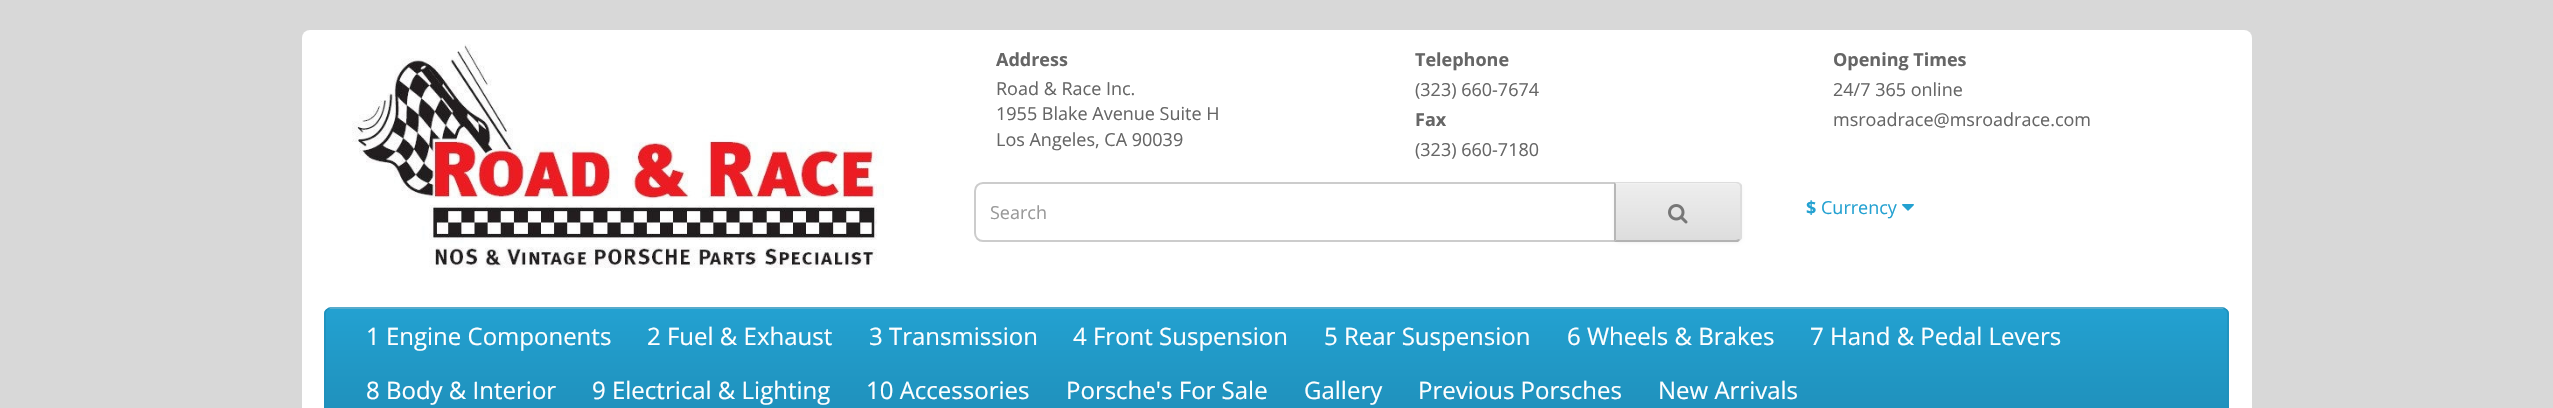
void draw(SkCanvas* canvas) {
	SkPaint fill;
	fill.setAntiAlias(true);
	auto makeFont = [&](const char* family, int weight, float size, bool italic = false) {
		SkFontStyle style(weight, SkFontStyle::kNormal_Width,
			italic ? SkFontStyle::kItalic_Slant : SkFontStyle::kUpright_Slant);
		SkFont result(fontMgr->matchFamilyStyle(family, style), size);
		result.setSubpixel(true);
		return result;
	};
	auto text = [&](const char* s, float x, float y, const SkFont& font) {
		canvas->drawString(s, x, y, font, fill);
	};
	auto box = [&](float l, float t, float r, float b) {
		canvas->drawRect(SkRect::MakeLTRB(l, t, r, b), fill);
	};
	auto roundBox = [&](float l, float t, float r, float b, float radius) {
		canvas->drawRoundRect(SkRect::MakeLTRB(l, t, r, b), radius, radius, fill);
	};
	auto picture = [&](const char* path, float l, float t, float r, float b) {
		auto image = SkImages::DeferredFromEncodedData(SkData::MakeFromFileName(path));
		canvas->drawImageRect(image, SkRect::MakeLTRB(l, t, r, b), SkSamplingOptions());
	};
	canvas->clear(0xFFD8D8D8);
	fill.setColor(0xFFFFFFFF);
	roundBox(302, 30, 2252, 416, 8);
	picture("image0.png", 352, 44, 884, 268);
	fill.setStyle(SkPaint::kStroke_Style);
	fill.setStrokeWidth(2);
	fill.setColor(0xFFCCCCCC);
	canvas->drawPath(SkPathBuilder().moveTo(983, 183).lineTo(1615, 183).lineTo(1615, 241).lineTo(983, 241).cubicTo(978.5f, 241, 975, 237.5f, 975, 233).lineTo(975, 191).cubicTo(975, 186.5f, 978.5f, 183, 983, 183).close().detach(), fill);
	fill.setStyle(SkPaint::kFill_Style);
	fill.setColor(0x0D000000);
	fill.setMaskFilter(SkMaskFilter::MakeBlur(kNormal_SkBlurStyle, 1.5f));
	canvas->drawRoundRect(SkRect::MakeLTRB(1614, 183, 1742, 243), 6, 6, fill);
	fill.setMaskFilter(nullptr);
	fill.setColor(0xFFE7E7E7);
	canvas->drawPath(SkPathBuilder().moveTo(1614, 182).lineTo(1736, 182).cubicTo(1739.5f, 182, 1742, 184.5f, 1742, 188).lineTo(1742, 236).cubicTo(1742, 239.5f, 1739.5f, 242, 1736, 242).lineTo(1614, 242).close().detach(), fill);
	canvas->save();
	canvas->clipPath(SkPathBuilder().moveTo(1614, 182).lineTo(1736, 182).cubicTo(1739.5f, 182, 1742, 184.5f, 1742, 188).lineTo(1742, 236).cubicTo(1742, 239.5f, 1739.5f, 242, 1736, 242).lineTo(1614, 242).close().detach(), true);
	{
		const SkColor colors[] = {0xFFEEEEEE, 0xFFDDDDDD};
		const float stops[] = {0, 1};
		const SkPoint ends[] = {{1678, 183}, {1678, 240}};
		fill.setShader(SkGradientShader::MakeLinear(ends, colors, stops, 2, SkTileMode::kClamp));
		fill.setAlpha(255);
	}
	box(1615, 183, 1742, 240);
	canvas->restore();
	fill.setShader(nullptr);
	fill.setColor(0xFFF1F1F1);
	canvas->drawPath(SkPathBuilder().moveTo(1616, 184).lineTo(1736, 184).cubicTo(1738, 184, 1740, 187, 1740, 189).lineTo(1740, 188).cubicTo(1740, 185, 1738, 183, 1735, 183).lineTo(1616, 183).close().detach(), fill);
	fill.setColor(0xFFDDDDDD);
	canvas->drawPath(SkPathBuilder().moveTo(1616, 183).lineTo(1736, 183).lineTo(1739, 184).lineTo(1740, 183).cubicTo(1739, 182, 1737, 182, 1736, 182).lineTo(1614, 182).lineTo(1616, 184).close().detach(), fill);
	canvas->drawPath(SkPathBuilder().moveTo(1740, 183).lineTo(1742, 185).lineTo(1742, 238).lineTo(1740, 240).lineTo(1739, 239).lineTo(1740, 236).lineTo(1740, 196).cubicTo(1740, 194, 1741, 187, 1739, 184).close().detach(), fill);
	fill.setColor(0xFFB3B3B3);
	canvas->drawPath(SkPathBuilder().moveTo(1738, 242).lineTo(1614, 242).lineTo(1616, 240).lineTo(1736, 240).lineTo(1739, 239).lineTo(1740, 240).close().detach(), fill);
	fill.setColor(0xFFB7B7B7);
	canvas->drawPath(SkPathBuilder().moveTo(1614, 242).lineTo(1616, 240).lineTo(1616, 184).lineTo(1614, 182).close().detach(), fill);
	picture("image1.png", 1668, 204, 1688, 224);
	picture("image2.png", 1902, 204, 1914, 211);
	canvas->save();
	canvas->clipPath(SkPathBuilder().moveTo(330, 308).lineTo(2223, 308).cubicTo(2226.5f, 308, 2229, 310.5f, 2229, 314).lineTo(2229, 413).cubicTo(2229, 416.5f, 2226.5f, 419, 2223, 419).lineTo(330, 419).cubicTo(326.5f, 419, 324, 416.5f, 324, 413).lineTo(324, 314).cubicTo(324, 310.5f, 326.5f, 308, 330, 308).close().detach(), true);
	{
		const SkColor colors[] = {0xFF23A1D1, 0xFF1F90BB};
		const float stops[] = {0, 1};
		const SkPoint ends[] = {{1277, 309}, {1277, 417}};
		fill.setShader(SkGradientShader::MakeLinear(ends, colors, stops, 2, SkTileMode::kClamp));
		fill.setAlpha(255);
	}
	box(324, 309, 2229, 408);
	canvas->restore();
	fill.setStyle(SkPaint::kStroke_Style);
	fill.setStrokeWidth(1.5f);
	fill.setShader(nullptr);
	fill.setColor(0xFF1F90BB);
	canvas->drawPath(SkPathBuilder().moveTo(326.5f, 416).cubicTo(325.5f, 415, 325, 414, 325, 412.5f).lineTo(325, 313.5f).cubicTo(325, 312, 325.5f, 311, 326.5f, 310).cubicTo(327.5f, 309, 328.5f, 308, 330, 308).lineTo(2223, 308).cubicTo(2224.5f, 308, 2225.5f, 309, 2226.5f, 310).cubicTo(2227.5f, 311, 2228, 312, 2228, 313.5f).lineTo(2228, 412.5f).cubicTo(2228, 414, 2227.5f, 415, 2226.5f, 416).detach(), fill);
	auto font1 = makeFont("Open Sans", 700, 18);
	fill.setStyle(SkPaint::kFill_Style);
	fill.setColor(0xFF666666);
	text("Address", 996, 66, font1);
	auto font2 = makeFont("Open Sans", 400, 18);
	text("Road & Race Inc.", 996, 95, font2);
	text("1955 Blake Avenue Suite H", 996, 120, font2);
	text("Los Angeles, CA 90039", 996, 146, font2);
	text("Telephone", 1415, 66, font1);
	text("(323) 660-7674", 1415, 96, font2);
	text("Fax", 1415, 126, font1);
	text("(323) 660-7180", 1415, 156, font2);
	text("Opening Times", 1833, 66, font1);
	text("24/7 365 online", 1833, 96, font2);
	text("msroadrace@msroadrace.com", 1833, 126, font2);
	fill.setColor(0xFF999999);
	text("Search", 990, 219, font2);
	fill.setColor(0xFF23A1D1);
	text("$", 1806, 214, font1);
	text("Currency", 1821, 214, font2);
	auto font3 = makeFont("Open Sans", 400, 24);
	fill.setColor(0xFFFFFFFF);
	text("1 Engine Components", 366, 345, font3);
	text("2 Fuel & Exhaust", 647, 345, font3);
	text("3 Transmission", 869, 345, font3);
	text("4 Front Suspension", 1073, 345, font3);
	text("5 Rear Suspension", 1324, 345, font3);
	text("6 Wheels & Brakes", 1567, 345, font3);
	text("7 Hand & Pedal Levers", 1810, 345, font3);
	text("8 Body & Interior", 366, 399, font3);
	text("9 Electrical & Lighting", 592, 399, font3);
	text("10 Accessories", 866, 399, font3);
	text("Porsche's For Sale", 1066, 399, font3);
	text("Gallery", 1304, 399, font3);
	text("Previous Porsches", 1418, 399, font3);
	text("New Arrivals", 1658, 399, font3);
}
